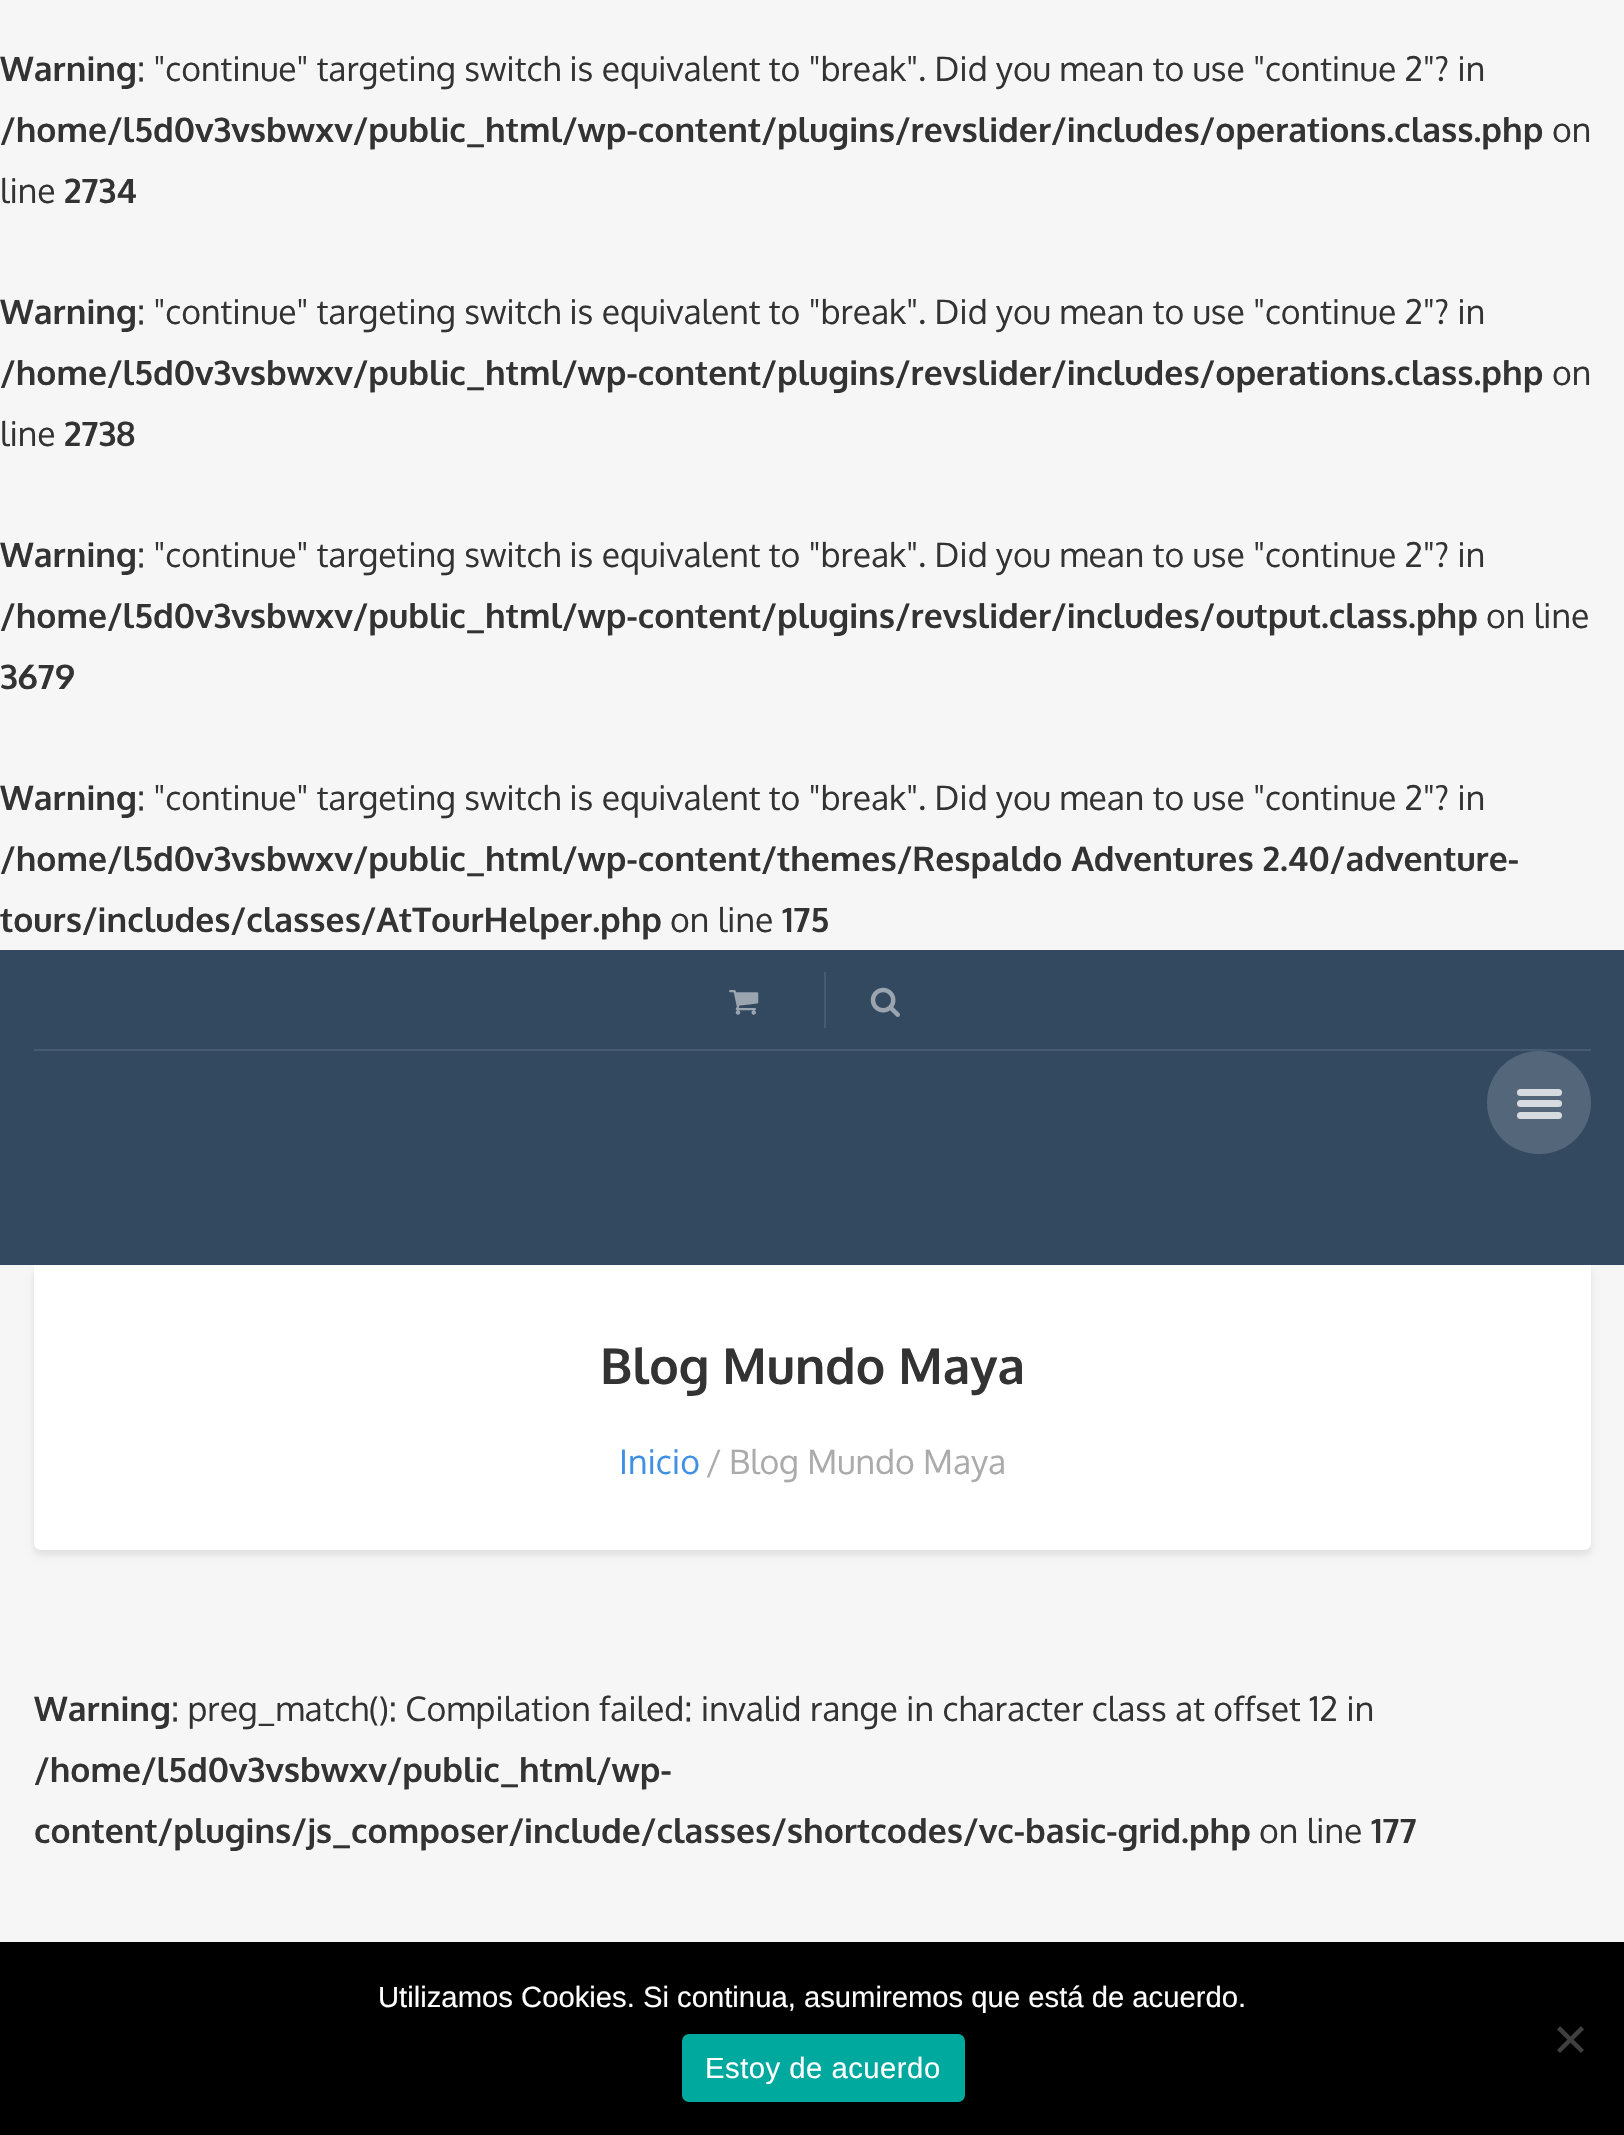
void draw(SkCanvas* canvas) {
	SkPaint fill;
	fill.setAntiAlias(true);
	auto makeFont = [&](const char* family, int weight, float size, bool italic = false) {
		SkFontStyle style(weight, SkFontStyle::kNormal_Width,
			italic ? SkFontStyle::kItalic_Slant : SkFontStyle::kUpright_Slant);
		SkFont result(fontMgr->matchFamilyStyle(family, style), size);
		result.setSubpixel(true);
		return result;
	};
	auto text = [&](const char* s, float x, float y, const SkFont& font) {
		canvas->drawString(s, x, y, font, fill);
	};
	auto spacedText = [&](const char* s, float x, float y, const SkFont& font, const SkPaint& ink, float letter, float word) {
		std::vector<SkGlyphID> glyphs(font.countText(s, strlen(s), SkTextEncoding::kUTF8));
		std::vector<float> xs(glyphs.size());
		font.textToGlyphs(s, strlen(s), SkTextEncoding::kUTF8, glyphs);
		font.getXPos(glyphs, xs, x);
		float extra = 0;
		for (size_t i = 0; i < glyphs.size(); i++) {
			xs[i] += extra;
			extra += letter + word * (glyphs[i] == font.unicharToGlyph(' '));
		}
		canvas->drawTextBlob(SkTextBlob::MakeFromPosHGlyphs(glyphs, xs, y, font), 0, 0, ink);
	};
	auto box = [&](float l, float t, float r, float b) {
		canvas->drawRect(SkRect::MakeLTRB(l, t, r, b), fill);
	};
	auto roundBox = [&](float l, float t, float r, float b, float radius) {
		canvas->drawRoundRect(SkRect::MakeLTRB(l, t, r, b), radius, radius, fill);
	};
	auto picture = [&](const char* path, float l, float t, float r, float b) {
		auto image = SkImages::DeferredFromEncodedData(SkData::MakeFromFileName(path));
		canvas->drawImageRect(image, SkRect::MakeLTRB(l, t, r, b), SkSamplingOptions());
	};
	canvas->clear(0xFFF6F6F6);
	fill.setColor(0xFF334960);
	box(0, 950, 1624, 1265);
	picture("image0.png", 729, 990, 759, 1015);
	fill.setColor(0xFF475B70);
	box(824, 972, 826, 1028);
	picture("image1.png", 870, 987, 900, 1017);
	box(34, 1049, 1591, 1051);
	fill.setColor(0xFF546679);
	roundBox(1487, 1051, 1591, 1154, 51.5f);
	fill.setColor(0xFFD6DBDF);
	roundBox(1517, 1100, 1562, 1107, 3.5f);
	roundBox(1517, 1089, 1562, 1096, 3.5f);
	roundBox(1517, 1112, 1562, 1119, 3.5f);
	fill.setColor(0x17000000);
	fill.setMaskFilter(SkMaskFilter::MakeBlur(kNormal_SkBlurStyle, 3.5f));
	canvas->drawRoundRect(SkRect::MakeLTRB(34, 1269, 1591, 1555), 7, 7, fill);
	fill.setMaskFilter(nullptr);
	fill.setColor(0xFFFFFFFF);
	canvas->drawPath(SkPathBuilder().moveTo(34, 1265).lineTo(1591, 1265).lineTo(1591, 1543).cubicTo(1591, 1547, 1588, 1550, 1584, 1550).lineTo(41, 1550).cubicTo(37, 1550, 34, 1547, 34, 1543).close().detach(), fill);
	fill.setColor(0xFF000000);
	box(0, 1942, 1624, 2135);
	fill.setColor(0xFF404040);
	canvas->drawPath(SkPathBuilder().moveTo(1581, 2026).lineTo(1584, 2029.5f).lineTo(1560, 2053).lineTo(1557, 2050).close().detach(), fill);
	canvas->drawPath(SkPathBuilder().moveTo(1557, 2029.5f).lineTo(1560, 2026).lineTo(1584, 2050).lineTo(1581, 2053).close().detach(), fill);
	fill.setColor(0xFF00A99D);
	roundBox(682, 2034, 965, 2102, 7);
	auto font1 = makeFont("Oxygen", 700, 33.75f);
	fill.setColor(0xFF333333);
	text("Warning", 0, 81, font1);
	auto font2 = makeFont("Oxygen", 400, 33.75f);
	text(": \"continue\" targeting switch is equivalent to \"break\". Did you mean to use \"continue 2\"? in", 137, 81, font2);
	text("/home/l5d0v3vsbwxv/public_html/wp-content/plugins/revslider/includes/operations.class.php", 0, 142, font1);
	text("on", 1552, 142, font2);
	text("line", 0, 203, font2);
	text("2734", 64, 203, font1);
	text("Warning", 0, 324, font1);
	text(": \"continue\" targeting switch is equivalent to \"break\". Did you mean to use \"continue 2\"? in", 137, 324, font2);
	text("/home/l5d0v3vsbwxv/public_html/wp-content/plugins/revslider/includes/operations.class.php", 0, 385, font1);
	text("on", 1552, 385, font2);
	text("line", 0, 446, font2);
	text("2738", 64, 446, font1);
	text("Warning", 0, 567, font1);
	text(": \"continue\" targeting switch is equivalent to \"break\". Did you mean to use \"continue 2\"? in", 137, 567, font2);
	text("/home/l5d0v3vsbwxv/public_html/wp-content/plugins/revslider/includes/output.class.php", 0, 628, font1);
	text("on line", 1486, 628, font2);
	text("3679", 0, 689, font1);
	text("Warning", 0, 810, font1);
	text(": \"continue\" targeting switch is equivalent to \"break\". Did you mean to use \"continue 2\"? in", 137, 810, font2);
	text("/home/l5d0v3vsbwxv/public_html/wp-content/themes/Respaldo Adventures 2.40/adventure-", 0, 871, font1);
	text("tours/includes/classes/AtTourHelper.php", 0, 932, font1);
	text("on line", 670, 932, font2);
	text("175", 782, 932, font1);
	auto font3 = makeFont("Oxygen", 700, 49.5f);
	text("Blog Mundo Maya", 600, 1384, font3);
	fill.setColor(0xFF4090E5);
	text("Inicio", 619, 1474, font2);
	fill.setColor(0xFFABABAB);
	text("/", 706, 1474, font2);
	text("Blog Mundo Maya", 729, 1474, font2);
	fill.setColor(0xFF333333);
	text("Warning", 34, 1721, font1);
	text(": preg_match(): Compilation failed: invalid range in character class at offset 12 in", 171, 1721, font2);
	text("/home/l5d0v3vsbwxv/public_html/wp-", 34, 1782, font1);
	text("content/plugins/js_composer/include/classes/shortcodes/vc-basic-grid.php", 34, 1843, font1);
	text("on line", 1259, 1843, font2);
	text("177", 1371, 1843, font1);
	auto font4 = makeFont("Liberation Sans", 400, 29.25f);
	fill.setColor(0xFFFFFFFF);
	text("Utilizamos Cookies. Si continua, asumiremos que está de acuerdo.", 378, 2007, font4);
	spacedText("Estoy de acuerdo", 705, 2078, font4, fill, 0.5f, 0);
}
